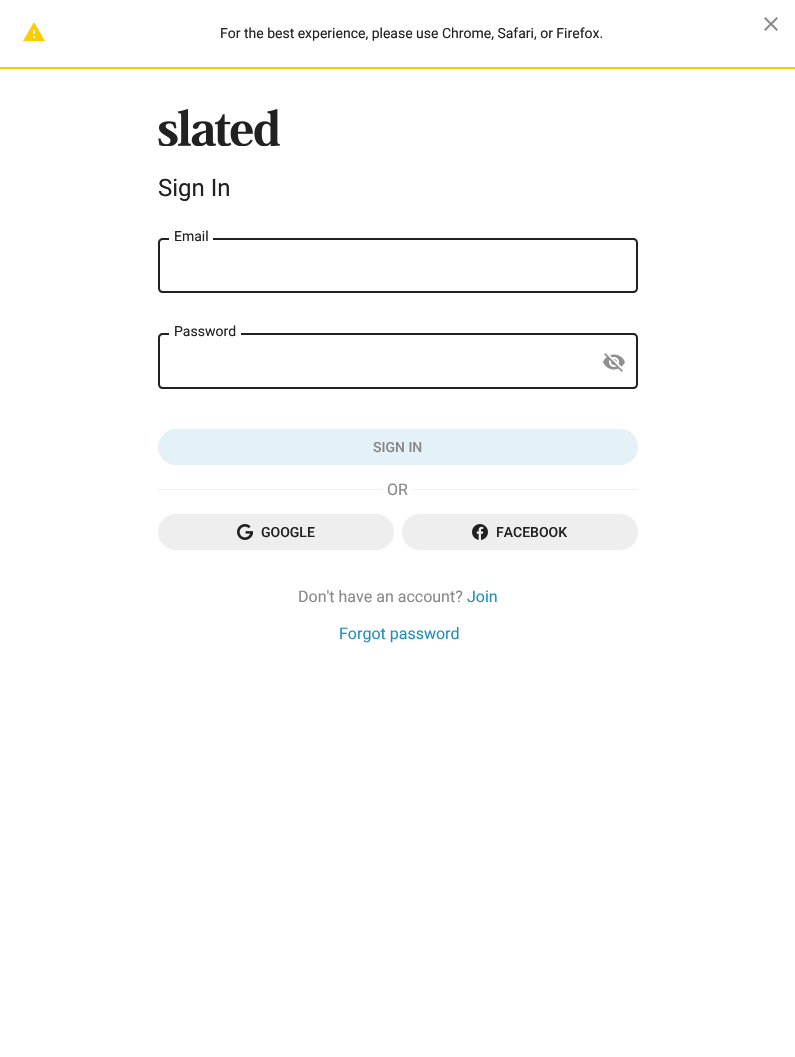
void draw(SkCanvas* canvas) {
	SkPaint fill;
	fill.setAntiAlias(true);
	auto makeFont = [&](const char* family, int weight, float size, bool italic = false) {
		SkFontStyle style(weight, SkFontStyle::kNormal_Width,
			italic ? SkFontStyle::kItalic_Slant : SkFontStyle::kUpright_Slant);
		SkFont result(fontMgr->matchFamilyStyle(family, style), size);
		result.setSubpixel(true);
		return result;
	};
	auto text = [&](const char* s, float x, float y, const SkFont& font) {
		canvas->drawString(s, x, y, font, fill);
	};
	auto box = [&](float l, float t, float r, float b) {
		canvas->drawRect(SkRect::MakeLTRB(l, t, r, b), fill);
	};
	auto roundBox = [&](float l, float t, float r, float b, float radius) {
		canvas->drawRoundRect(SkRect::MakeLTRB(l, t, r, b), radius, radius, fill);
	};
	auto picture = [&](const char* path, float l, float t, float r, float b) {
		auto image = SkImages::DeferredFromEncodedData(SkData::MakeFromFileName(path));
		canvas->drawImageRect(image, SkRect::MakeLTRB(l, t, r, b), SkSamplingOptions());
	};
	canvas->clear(0xFFFFFFFF);
	fill.setColor(0xFFFFCC00);
	box(0, 67, 795, 69);
	picture("image0.png", 764, 17, 778, 31);
	picture("image1.png", 23, 22, 45, 41);
	picture("image2.png", 158, 109, 280, 146);
	fill.setColor(0xFF212121);
	canvas->drawPath(SkPathBuilder(SkPathFillType::kEvenOdd).moveTo(209, 238).lineTo(633, 238).cubicTo(636, 238, 638, 240, 638, 243).lineTo(638, 288).cubicTo(638, 291, 636, 293, 633, 293).lineTo(209, 293).close().moveTo(209, 240).lineTo(633, 240).cubicTo(635, 240, 636, 241, 636, 243).lineTo(636, 288).cubicTo(636, 290, 635, 291, 633, 291).lineTo(209, 291).close().detach(), fill);
	fill.setColor(0xFFFFFFFF);
	box(209, 238, 213, 240);
	fill.setColor(0xFF212121);
	canvas->drawPath(SkPathBuilder(SkPathFillType::kEvenOdd).moveTo(163, 238).lineTo(169, 238).lineTo(169, 293).lineTo(163, 293).cubicTo(160, 293, 158, 291, 158, 288).lineTo(158, 243).cubicTo(158, 240, 160, 238, 163, 238).close().moveTo(163, 240).lineTo(169, 240).lineTo(169, 291).lineTo(163, 291).cubicTo(161, 291, 160, 290, 160, 288).lineTo(160, 243).cubicTo(160, 241, 161, 240, 163, 240).close().detach(), fill);
	box(169, 291, 209, 293);
	canvas->drawPath(SkPathBuilder(SkPathFillType::kEvenOdd).moveTo(228, 333).lineTo(633, 333).cubicTo(636, 333, 638, 335, 638, 338).lineTo(638, 384).cubicTo(638, 387, 636, 389, 633, 389).lineTo(228, 389).close().moveTo(228, 335).lineTo(633, 335).cubicTo(635, 335, 636, 336, 636, 338).lineTo(636, 384).cubicTo(636, 386, 635, 387, 633, 387).lineTo(228, 387).close().detach(), fill);
	fill.setColor(0xFFFFFFFF);
	box(228, 333, 241, 335);
	fill.setColor(0xFF212121);
	canvas->drawPath(SkPathBuilder(SkPathFillType::kEvenOdd).moveTo(163, 333).lineTo(169, 333).lineTo(169, 389).lineTo(163, 389).cubicTo(160, 389, 158, 387, 158, 384).lineTo(158, 338).cubicTo(158, 335, 160, 333, 163, 333).close().moveTo(163, 335).lineTo(169, 335).lineTo(169, 387).lineTo(163, 387).cubicTo(161, 387, 160, 386, 160, 384).lineTo(160, 338).cubicTo(160, 336, 161, 335, 163, 335).close().detach(), fill);
	box(169, 387, 228, 389);
	picture("image3.png", 603, 353, 625, 372);
	fill.setColor(0xFFE4F1F6);
	roundBox(158, 429, 638, 465, 18);
	fill.setColor(0xFFEEEEEE);
	box(158, 489, 638, 490);
	fill.setColor(0xFFFFFFFF);
	box(383, 489, 413, 490);
	fill.setColor(0xFFEEEEEE);
	roundBox(158, 514, 394, 550, 18);
	picture("image4.png", 237, 524, 253, 540);
	roundBox(402, 514, 638, 550, 18);
	picture("image5.png", 472, 524, 488, 540);
	auto font1 = makeFont("Roboto", 400, 14);
	fill.setColor(0xFF212121);
	text("For the best experience, please use Chrome, Safari, or Firefox.", 220, 38, font1);
	auto font2 = makeFont("Roboto", 400, 24);
	text("Sign In", 158, 196, font2);
	text("Email", 174, 241, font1);
	text("Password", 174, 336, font1);
	auto font3 = makeFont("Roboto", 500, 14);
	fill.setColor(0xFF888888);
	text("SIGN IN", 373, 452, font3);
	auto font4 = makeFont("Roboto", 400, 16);
	text("OR", 387, 495, font4);
	fill.setColor(0xFF212121);
	text("GOOGLE", 261, 537, font3);
	text("FACEBOOK", 496, 537, font3);
	fill.setColor(0xFF888888);
	text("Don't have an account?", 298, 602, font4);
	fill.setColor(0xFF218EB7);
	text("Join", 467, 602, font4);
	text("Forgot password", 339, 639, font4);
}
